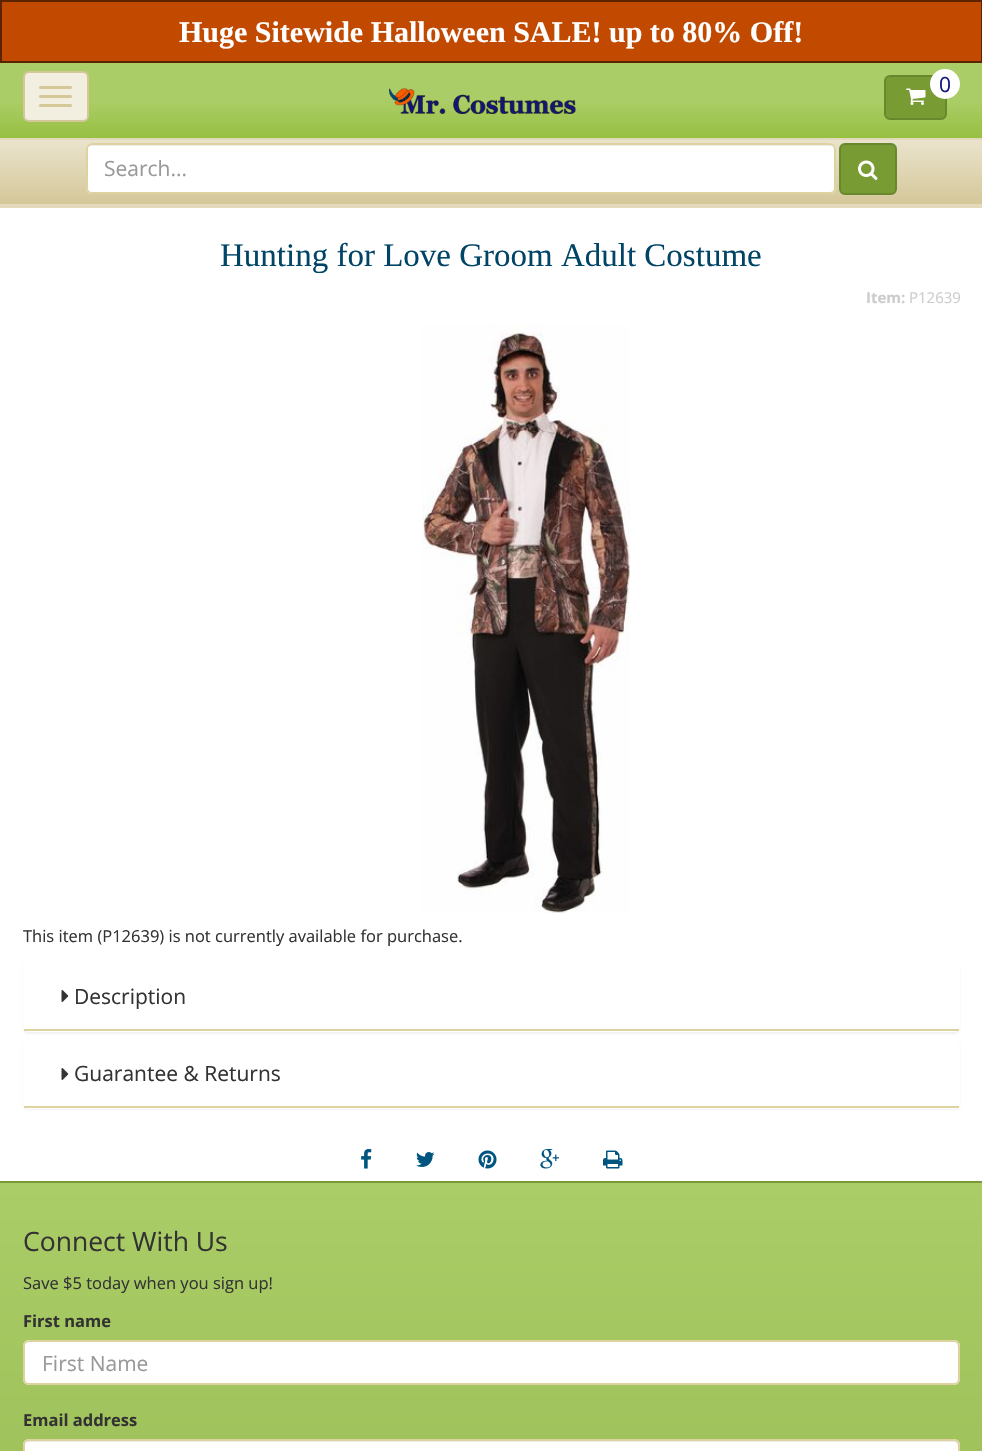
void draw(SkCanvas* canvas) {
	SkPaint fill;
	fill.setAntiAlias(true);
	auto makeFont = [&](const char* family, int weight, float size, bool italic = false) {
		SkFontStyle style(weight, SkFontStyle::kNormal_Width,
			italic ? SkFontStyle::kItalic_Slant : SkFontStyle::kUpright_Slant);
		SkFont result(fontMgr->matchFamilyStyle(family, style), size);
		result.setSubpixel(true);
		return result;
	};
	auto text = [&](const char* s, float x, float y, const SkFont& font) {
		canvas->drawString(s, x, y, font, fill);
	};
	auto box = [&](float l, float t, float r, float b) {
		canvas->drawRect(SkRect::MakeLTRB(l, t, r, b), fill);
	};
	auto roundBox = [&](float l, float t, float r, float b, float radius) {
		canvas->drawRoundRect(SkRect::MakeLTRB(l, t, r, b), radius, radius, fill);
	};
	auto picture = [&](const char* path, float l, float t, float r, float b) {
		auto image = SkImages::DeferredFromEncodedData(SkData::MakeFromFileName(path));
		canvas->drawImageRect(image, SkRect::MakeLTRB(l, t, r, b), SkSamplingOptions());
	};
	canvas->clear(0xFFFFFFFF);
	fill.setColor(0xFFC24A00);
	canvas->drawRect(SkRect::MakeLTRB(1, 1, 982, 62), fill);
	fill.setStyle(SkPaint::kStroke_Style);
	fill.setStrokeWidth(2);
	fill.setColor(0xFF5C2300);
	canvas->drawRect(SkRect::MakeLTRB(1, 1, 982, 62), fill);
	fill.setStyle(SkPaint::kFill_Style);
	fill.setColor(0xFFE3DABC);
	box(0, 204, 982, 208);
	{
		const SkColor colors[] = {0xFFABCD67, 0xFF96C041};
		const float stops[] = {0.5f, 1};
		const SkPoint ends[] = {{491, 63}, {491, 138}};
		fill.setShader(SkGradientShader::MakeLinear(ends, colors, stops, 2, SkTileMode::kClamp));
		fill.setAlpha(255);
	}
	box(0, 63, 982, 138);
	fill.setShader(nullptr);
	fill.setColor(0xFFF2EEE0);
	canvas->drawRoundRect(SkRect::MakeLTRB(24, 72, 88, 121), 5, 5, fill);
	fill.setStyle(SkPaint::kStroke_Style);
	fill.setColor(0xFFD4C798);
	canvas->drawRoundRect(SkRect::MakeLTRB(24, 72, 88, 121), 5, 5, fill);
	fill.setStyle(SkPaint::kFill_Style);
	roundBox(39, 86, 72, 89, 1.5f);
	roundBox(39, 95, 72, 98, 1.5f);
	roundBox(39, 104, 72, 107, 1.5f);
	fill.setColor(0xFF789B33);
	canvas->drawRoundRect(SkRect::MakeLTRB(885, 76, 946, 119), 5, 5, fill);
	fill.setStyle(SkPaint::kStroke_Style);
	fill.setColor(0xFF69882D);
	canvas->drawRoundRect(SkRect::MakeLTRB(885, 76, 946, 119), 5, 5, fill);
	fill.setStyle(SkPaint::kFill_Style);
	fill.setColor(0xFFFFFFFF);
	canvas->drawCircle(945, 84, 15, fill);
	picture("image0.png", 906, 88, 926, 105);
	picture("image1.png", 389, 88, 576, 114);
	{
		const SkColor colors[] = {0xFFEAE4CE, 0xFFD4C798};
		const float stops[] = {0, 1};
		const SkPoint ends[] = {{491, 139}, {491, 204}};
		fill.setShader(SkGradientShader::MakeLinear(ends, colors, stops, 2, SkTileMode::kClamp));
		fill.setAlpha(255);
	}
	box(0, 140, 982, 204);
	fill.setShader(nullptr);
	fill.setColor(0xFFE3DABC);
	box(0, 138, 982, 140);
	fill.setColor(0xFFFFFFFF);
	roundBox(86, 143, 836, 194, 6);
	fill.setColor(0xFFECECEC);
	canvas->drawPath(SkPathBuilder().moveTo(92, 146).lineTo(830, 146).cubicTo(832, 146, 834, 148, 834, 150).lineTo(834, 149).cubicTo(834, 146, 832, 144, 829, 144).lineTo(92, 144).cubicTo(89, 144, 87, 146, 87, 149).lineTo(87, 150).cubicTo(87, 148, 89, 146, 92, 146).close().detach(), fill);
	fill.setStyle(SkPaint::kStroke_Style);
	fill.setColor(0xFFDED29E);
	canvas->drawRoundRect(SkRect::MakeLTRB(87, 144, 835, 193), 5, 5, fill);
	fill.setStyle(SkPaint::kFill_Style);
	fill.setColor(0xFF789B33);
	canvas->drawRoundRect(SkRect::MakeLTRB(840, 144, 896, 194), 5, 5, fill);
	fill.setStyle(SkPaint::kStroke_Style);
	fill.setColor(0xFF69882D);
	canvas->drawRoundRect(SkRect::MakeLTRB(840, 144, 896, 194), 5, 5, fill);
	picture("image2.png", 858, 160, 878, 180);
	picture("image3.png", 422, 324, 630, 913);
	fill.setStyle(SkPaint::kFill_Style);
	fill.setColor(0x0D000000);
	fill.setMaskFilter(SkMaskFilter::MakeBlur(kNormal_SkBlurStyle, 1));
	canvas->drawRoundRect(SkRect::MakeLTRB(23, 963, 960, 1034), 6, 6, fill);
	fill.setMaskFilter(nullptr);
	fill.setColor(0xFFFFFFFF);
	roundBox(23, 962, 960, 1032, 6);
	fill.setColor(0xFFDED29E);
	box(24, 1029, 959, 1031);
	picture("image4.png", 61, 990, 69, 1002);
	fill.setColor(0x0D000000);
	fill.setMaskFilter(SkMaskFilter::MakeBlur(kNormal_SkBlurStyle, 1));
	canvas->drawRoundRect(SkRect::MakeLTRB(23, 1041, 960, 1110), 6, 6, fill);
	fill.setMaskFilter(nullptr);
	fill.setColor(0xFFFFFFFF);
	roundBox(23, 1040, 960, 1109, 6);
	fill.setColor(0xFFDED29E);
	box(24, 1106, 959, 1108);
	picture("image4.png", 61, 1068, 69, 1080);
	picture("image5.png", 361, 1149, 372, 1169);
	picture("image6.png", 416, 1152, 435, 1167);
	picture("image7.png", 478, 1150, 497, 1169);
	picture("image8.png", 540, 1149, 559, 1169);
	picture("image9.png", 603, 1150, 623, 1169);
	{
		const SkColor colors[] = {0xFFABCD67, 0xFF789B33};
		const float stops[] = {0, 1};
		const SkPoint ends[] = {{491, 1182}, {491, 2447}};
		fill.setShader(SkGradientShader::MakeLinear(ends, colors, stops, 2, SkTileMode::kClamp));
		fill.setAlpha(255);
	}
	box(0, 1183, 982, 1451);
	fill.setShader(nullptr);
	fill.setColor(0xFF789B33);
	box(0, 1181, 982, 1183);
	fill.setColor(0xFFFFFFFF);
	roundBox(23, 1340, 960, 1385, 6);
	fill.setColor(0xFFECECEC);
	canvas->drawPath(SkPathBuilder().moveTo(28, 1342).lineTo(954, 1342).cubicTo(960, 1342, 958, 1356, 958, 1358).lineTo(958, 1381).cubicTo(959, 1380, 959, 1379, 959, 1378).lineTo(959, 1346).cubicTo(959, 1343, 957, 1341, 954, 1341).lineTo(29, 1341).cubicTo(26, 1341, 24, 1343, 24, 1346).lineTo(24, 1347).cubicTo(24, 1345, 26, 1342, 28, 1342).close().detach(), fill);
	fill.setStyle(SkPaint::kStroke_Style);
	fill.setColor(0xFFDED29E);
	canvas->drawRoundRect(SkRect::MakeLTRB(24, 1341, 959, 1384), 5, 5, fill);
	fill.setStyle(SkPaint::kFill_Style);
	fill.setColor(0xFFFFFFFF);
	roundBox(23, 1439, 960, 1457, 6);
	fill.setColor(0xFFECECEC);
	canvas->drawPath(SkPathBuilder().moveTo(28, 1442).lineTo(954, 1442).cubicTo(956, 1442, 958, 1444, 958, 1446).lineTo(958, 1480).cubicTo(959, 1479, 959, 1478, 959, 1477).lineTo(959, 1445).cubicTo(959, 1442, 957, 1440, 954, 1440).lineTo(29, 1440).cubicTo(26, 1440, 24, 1442, 24, 1445).lineTo(24, 1446).cubicTo(24, 1444, 26, 1442, 28, 1442).close().detach(), fill);
	fill.setStyle(SkPaint::kStroke_Style);
	fill.setColor(0xFFDED29E);
	canvas->drawRoundRect(SkRect::MakeLTRB(24, 1440, 959, 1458), 5, 5, fill);
	auto font1 = makeFont("Liberation Serif", 700, 30);
	fill.setStyle(SkPaint::kFill_Style);
	fill.setColor(0xFFFFFFFF);
	text("Huge Sitewide Halloween SALE! up to 80% Off!", 179, 42, font1);
	auto font2 = makeFont("Open Sans", 400, 21);
	fill.setColor(0xFF14187A);
	text("0", 939, 92, font2);
	fill.setColor(0xFF999999);
	text("Search...", 104, 176, font2);
	auto font3 = makeFont("Liberation Serif", 400, 33);
	fill.setColor(0xFF004466);
	text("Hunting for Love Groom Adult Costume", 220, 266, font3);
	auto font4 = makeFont("Open Sans", 700, 15);
	fill.setColor(0xFFCCCCCC);
	text("Item:", 866, 303, font4);
	auto font5 = makeFont("Open Sans", 400, 15);
	text("P12639", 909, 303, font5);
	auto font6 = makeFont("Open Sans", 400, 16.5f);
	fill.setColor(0xFF333333);
	text("This item (P12639) is not currently available for purchase.", 23, 942, font6);
	text("Description", 74, 1004, font2);
	text("Guarantee & Returns", 74, 1081, font2);
	auto font7 = makeFont("Open Sans", 400, 26.5f);
	text("Connect With Us", 23, 1251, font7);
	text("Save $5 today when you sign up!", 23, 1289, font6);
	auto font8 = makeFont("Open Sans", 700, 16.5f);
	text("First name", 23, 1327, font8);
	fill.setColor(0xFF999999);
	text("First Name", 42, 1371, font2);
	fill.setColor(0xFF333333);
	text("Email address", 23, 1426, font8);
}
